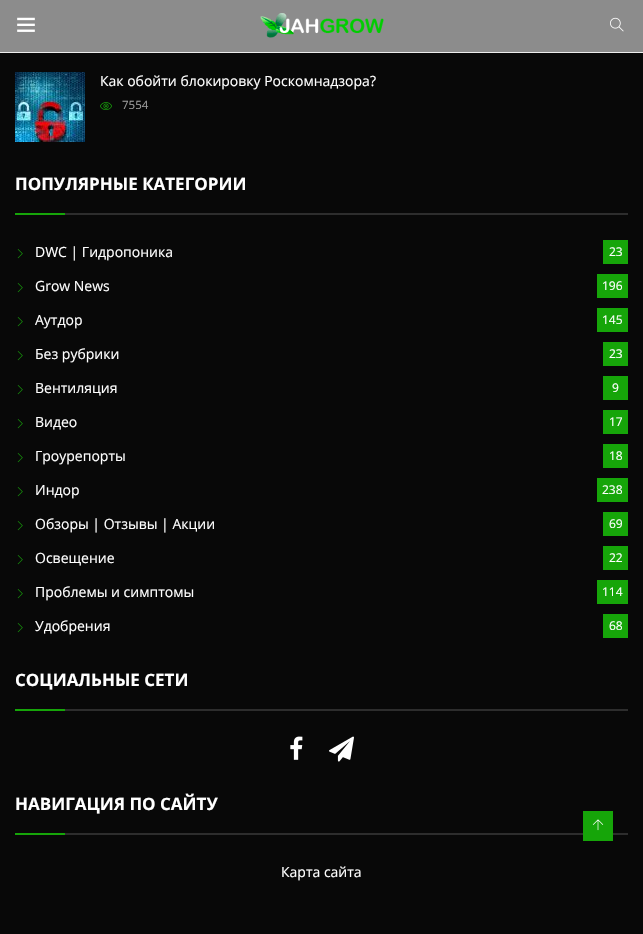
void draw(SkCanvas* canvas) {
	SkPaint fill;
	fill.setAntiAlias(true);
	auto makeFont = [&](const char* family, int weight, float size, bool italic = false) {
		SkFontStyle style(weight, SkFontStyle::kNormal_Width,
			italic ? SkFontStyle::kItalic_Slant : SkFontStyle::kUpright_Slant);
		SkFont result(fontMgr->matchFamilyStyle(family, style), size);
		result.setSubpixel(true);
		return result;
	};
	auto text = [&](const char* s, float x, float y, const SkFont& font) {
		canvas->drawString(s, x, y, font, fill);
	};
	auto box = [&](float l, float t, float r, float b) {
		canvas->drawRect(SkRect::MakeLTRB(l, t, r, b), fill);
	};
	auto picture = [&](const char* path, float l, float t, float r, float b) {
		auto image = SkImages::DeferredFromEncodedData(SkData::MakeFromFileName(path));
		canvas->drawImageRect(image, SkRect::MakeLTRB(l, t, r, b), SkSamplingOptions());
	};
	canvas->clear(0xFF080808);
	fill.setColor(0xFF8C8C8C);
	box(0, 0, 643, 52);
	fill.setColor(0xFFEEEEEE);
	box(0, 52, 643, 53);
	picture("image0.png", 17, 17, 35, 32);
	picture("image1.png", 260, 13, 384, 38);
	picture("image2.png", 610, 17, 624, 32);
	picture("image3.png", 15, 72, 85, 142);
	picture("image4.png", 100, 102, 112, 110);
	fill.setColor(0xFF16A509);
	box(15, 213, 65, 215);
	fill.setColor(0xFF2D2D2D);
	box(65, 213, 628, 215);
	picture("image5.png", 17, 249, 23, 259);
	fill.setColor(0xFF16A509);
	box(603, 240, 628, 264);
	picture("image5.png", 17, 283, 23, 293);
	box(597, 274, 628, 298);
	picture("image5.png", 17, 317, 23, 327);
	box(597, 308, 628, 332);
	picture("image5.png", 17, 351, 23, 361);
	box(603, 342, 628, 366);
	picture("image5.png", 17, 385, 23, 395);
	box(603, 376, 628, 400);
	picture("image5.png", 17, 419, 23, 429);
	box(603, 410, 628, 434);
	picture("image5.png", 17, 453, 23, 463);
	box(603, 444, 628, 468);
	picture("image5.png", 17, 487, 23, 497);
	box(597, 478, 628, 502);
	picture("image5.png", 17, 521, 23, 531);
	box(603, 512, 628, 536);
	picture("image5.png", 17, 555, 23, 565);
	box(603, 546, 628, 570);
	picture("image5.png", 17, 589, 23, 599);
	box(597, 580, 628, 604);
	picture("image5.png", 17, 623, 23, 633);
	box(603, 614, 628, 638);
	box(15, 709, 65, 711);
	fill.setColor(0xFF2D2D2D);
	box(65, 709, 628, 711);
	picture("image6.png", 290, 736, 303, 760);
	picture("image7.png", 329, 736, 354, 762);
	fill.setColor(0xFF16A509);
	box(15, 833, 65, 835);
	fill.setColor(0xFF2D2D2D);
	box(65, 833, 628, 835);
	fill.setColor(0xFF16A509);
	box(583, 811, 613, 841);
	picture("image8.png", 592, 819, 604, 831);
	auto font1 = makeFont("Open Sans", 400, 14);
	fill.setColor(0xFFFFFFFF);
	text("Как обойти блокировку Роскомнадзора?", 100, 86, font1);
	auto font2 = makeFont("Open Sans", 400, 11.5f);
	fill.setColor(0xFF9C9C9C);
	text("7554", 122, 109, font2);
	auto font3 = makeFont("Open Sans", 700, 17);
	fill.setColor(0xFFFFFFFF);
	text("ПОПУЛЯРНЫЕ КАТЕГОРИИ", 15, 190, font3);
	text("DWC | Гидропоника", 35, 257, font1);
	auto font4 = makeFont("Open Sans", 400, 12);
	text("23", 609, 256, font4);
	text("Grow News", 35, 291, font1);
	text("196", 602, 290, font4);
	text("Аутдор", 35, 325, font1);
	text("145", 602, 324, font4);
	text("Без рубрики", 35, 359, font1);
	text("23", 609, 358, font4);
	text("Вентиляция", 35, 393, font1);
	text("9", 612, 392, font4);
	text("Видео", 35, 427, font1);
	text("17", 609, 426, font4);
	text("Гроурепорты", 35, 461, font1);
	text("18", 609, 460, font4);
	text("Индор", 35, 495, font1);
	text("238", 602, 494, font4);
	text("Обзоры | Отзывы | Акции", 35, 529, font1);
	text("69", 609, 528, font4);
	text("Освещение", 35, 563, font1);
	text("22", 609, 562, font4);
	text("Проблемы и симптомы", 35, 597, font1);
	text("114", 602, 596, font4);
	text("Удобрения", 35, 631, font1);
	text("68", 609, 630, font4);
	text("СОЦИАЛЬНЫЕ СЕТИ", 15, 686, font3);
	text("НАВИГАЦИЯ ПО САЙТУ", 15, 810, font3);
	text("Карта сайта", 281, 877, font1);
}
